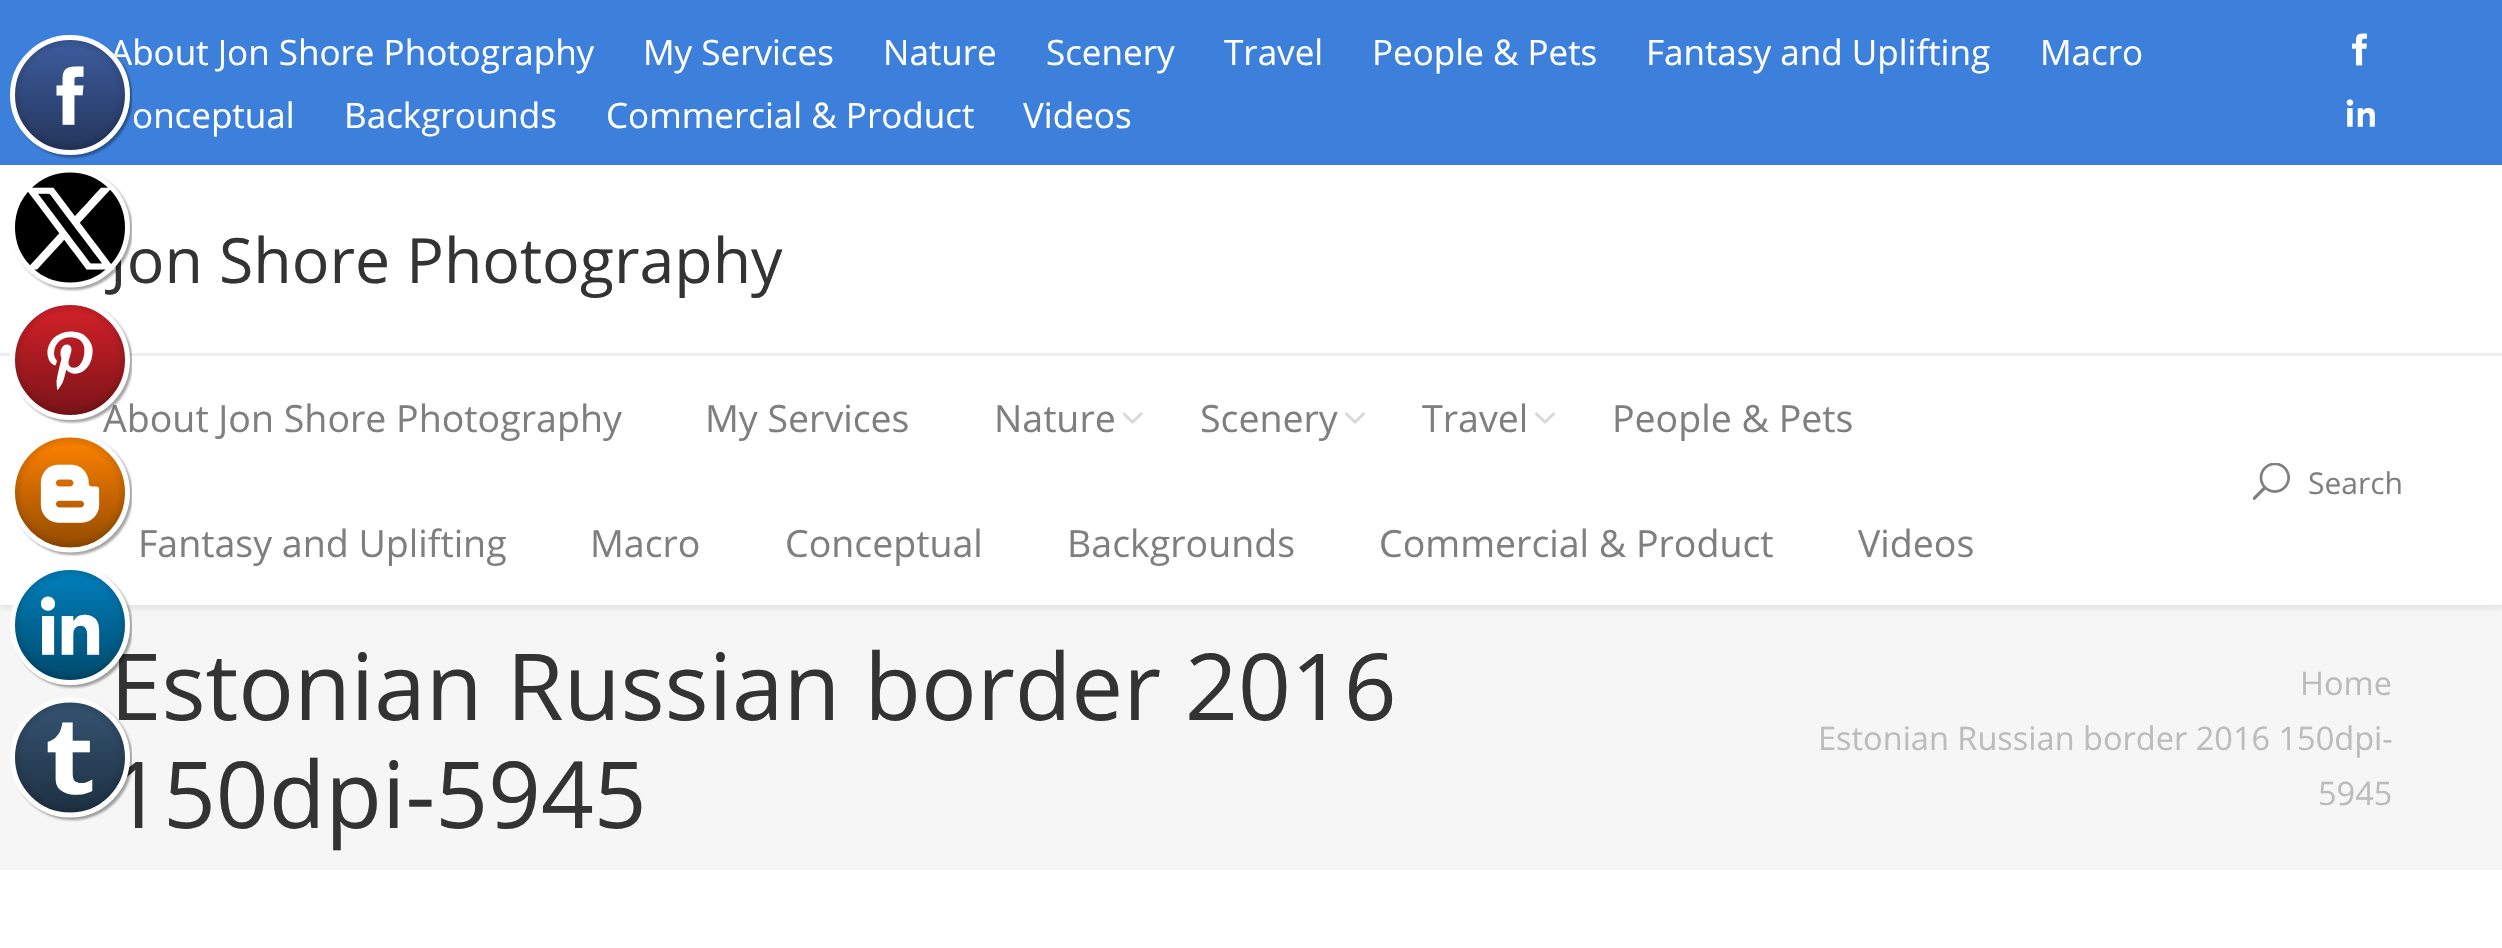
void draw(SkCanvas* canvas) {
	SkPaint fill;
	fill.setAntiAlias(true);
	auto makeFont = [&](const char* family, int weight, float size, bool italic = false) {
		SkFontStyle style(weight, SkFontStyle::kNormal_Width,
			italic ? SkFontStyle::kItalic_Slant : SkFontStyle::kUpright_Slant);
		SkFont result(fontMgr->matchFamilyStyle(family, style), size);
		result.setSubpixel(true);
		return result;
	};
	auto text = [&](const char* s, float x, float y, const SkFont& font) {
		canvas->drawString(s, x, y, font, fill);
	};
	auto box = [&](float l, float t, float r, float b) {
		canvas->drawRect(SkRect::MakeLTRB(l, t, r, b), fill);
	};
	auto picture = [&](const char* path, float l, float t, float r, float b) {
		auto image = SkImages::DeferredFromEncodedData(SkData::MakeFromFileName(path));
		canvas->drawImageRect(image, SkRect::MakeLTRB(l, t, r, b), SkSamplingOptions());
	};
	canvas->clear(0xFFFFFFFF);
	fill.setColor(0xFFF6F6F6);
	box(0, 605, 2502, 870);
	canvas->save();
	canvas->clipRect(SkRect::MakeLTRB(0, 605, 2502, 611));
	fill.setColor(0x26000000);
	fill.setMaskFilter(SkMaskFilter::MakeBlur(kNormal_SkBlurStyle, 5));
	canvas->drawRect(SkRect::MakeLTRB(0, 0, 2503, 605), fill);
	fill.setMaskFilter(nullptr);
	canvas->restore();
	fill.setColor(0xFF3D80DC);
	box(0, 0, 2502, 165);
	picture("image1.png", 2352, 33, 2367, 66);
	picture("image2.png", 2346, 99, 2375, 127);
	fill.setColor(0xFFEEEEEE);
	box(0, 353, 2502, 356);
	picture("image3.png", 1123, 412, 1143, 424);
	picture("image4.png", 1345, 412, 1365, 424);
	picture("image4.png", 1535, 412, 1555, 424);
	picture("image5.png", 2253, 463, 2290, 500);
	auto font1 = makeFont("Open Sans", 400, 35);
	fill.setColor(0xFFFFFFFF);
	text("About Jon Shore Photography", 110, 65, font1);
	text("My Services", 643, 65, font1);
	text("Nature", 883, 65, font1);
	text("Scenery", 1046, 65, font1);
	text("Travel", 1224, 65, font1);
	text("People & Pets", 1372, 65, font1);
	text("Fantasy and Uplifting", 1646, 65, font1);
	text("Macro", 2040, 65, font1);
	text("onceptual", 132, 128, font1);
	text("Backgrounds", 344, 128, font1);
	text("Commercial & Product", 606, 128, font1);
	text("Videos", 1023, 128, font1);
	auto font2 = makeFont("Open Sans", 400, 62.5f);
	fill.setColor(0xFF333333);
	text("Jon Shore Photography", 110, 283, font2);
	auto font3 = makeFont("Open Sans", 400, 37.5f);
	fill.setColor(0xFF7F7F7F);
	text("About Jon Shore Photography", 103, 432, font3);
	text("My Services", 705, 432, font3);
	text("Nature", 994, 432, font3);
	text("Scenery", 1200, 432, font3);
	text("Travel", 1422, 432, font3);
	text("People & Pets", 1612, 432, font3);
	text("Fantasy and Uplifting", 138, 557, font3);
	text("Macro", 590, 557, font3);
	text("Conceptual", 785, 557, font3);
	text("Backgrounds", 1067, 557, font3);
	text("Commercial & Product", 1379, 557, font3);
	text("Videos", 1858, 557, font3);
	auto font4 = makeFont("Open Sans", 400, 30);
	text("Search", 2308, 494, font4);
	auto font5 = makeFont("Open Sans", 400, 92.5f);
	fill.setColor(0xFF333333);
	text("Estonian Russian border 2016", 110, 720, font5);
	text("150dpi-5945", 110, 828, font5);
	picture("image0.png", 10, 35, 132, 822);
	auto font6 = makeFont("Open Sans", 400, 32.5f);
	fill.setColor(0xFFBCBCBC);
	text("Home", 2300, 695, font6);
	text("Estonian Russian border 2016 150dpi-", 1818, 750, font6);
	text("5945", 2318, 805, font6);
}
